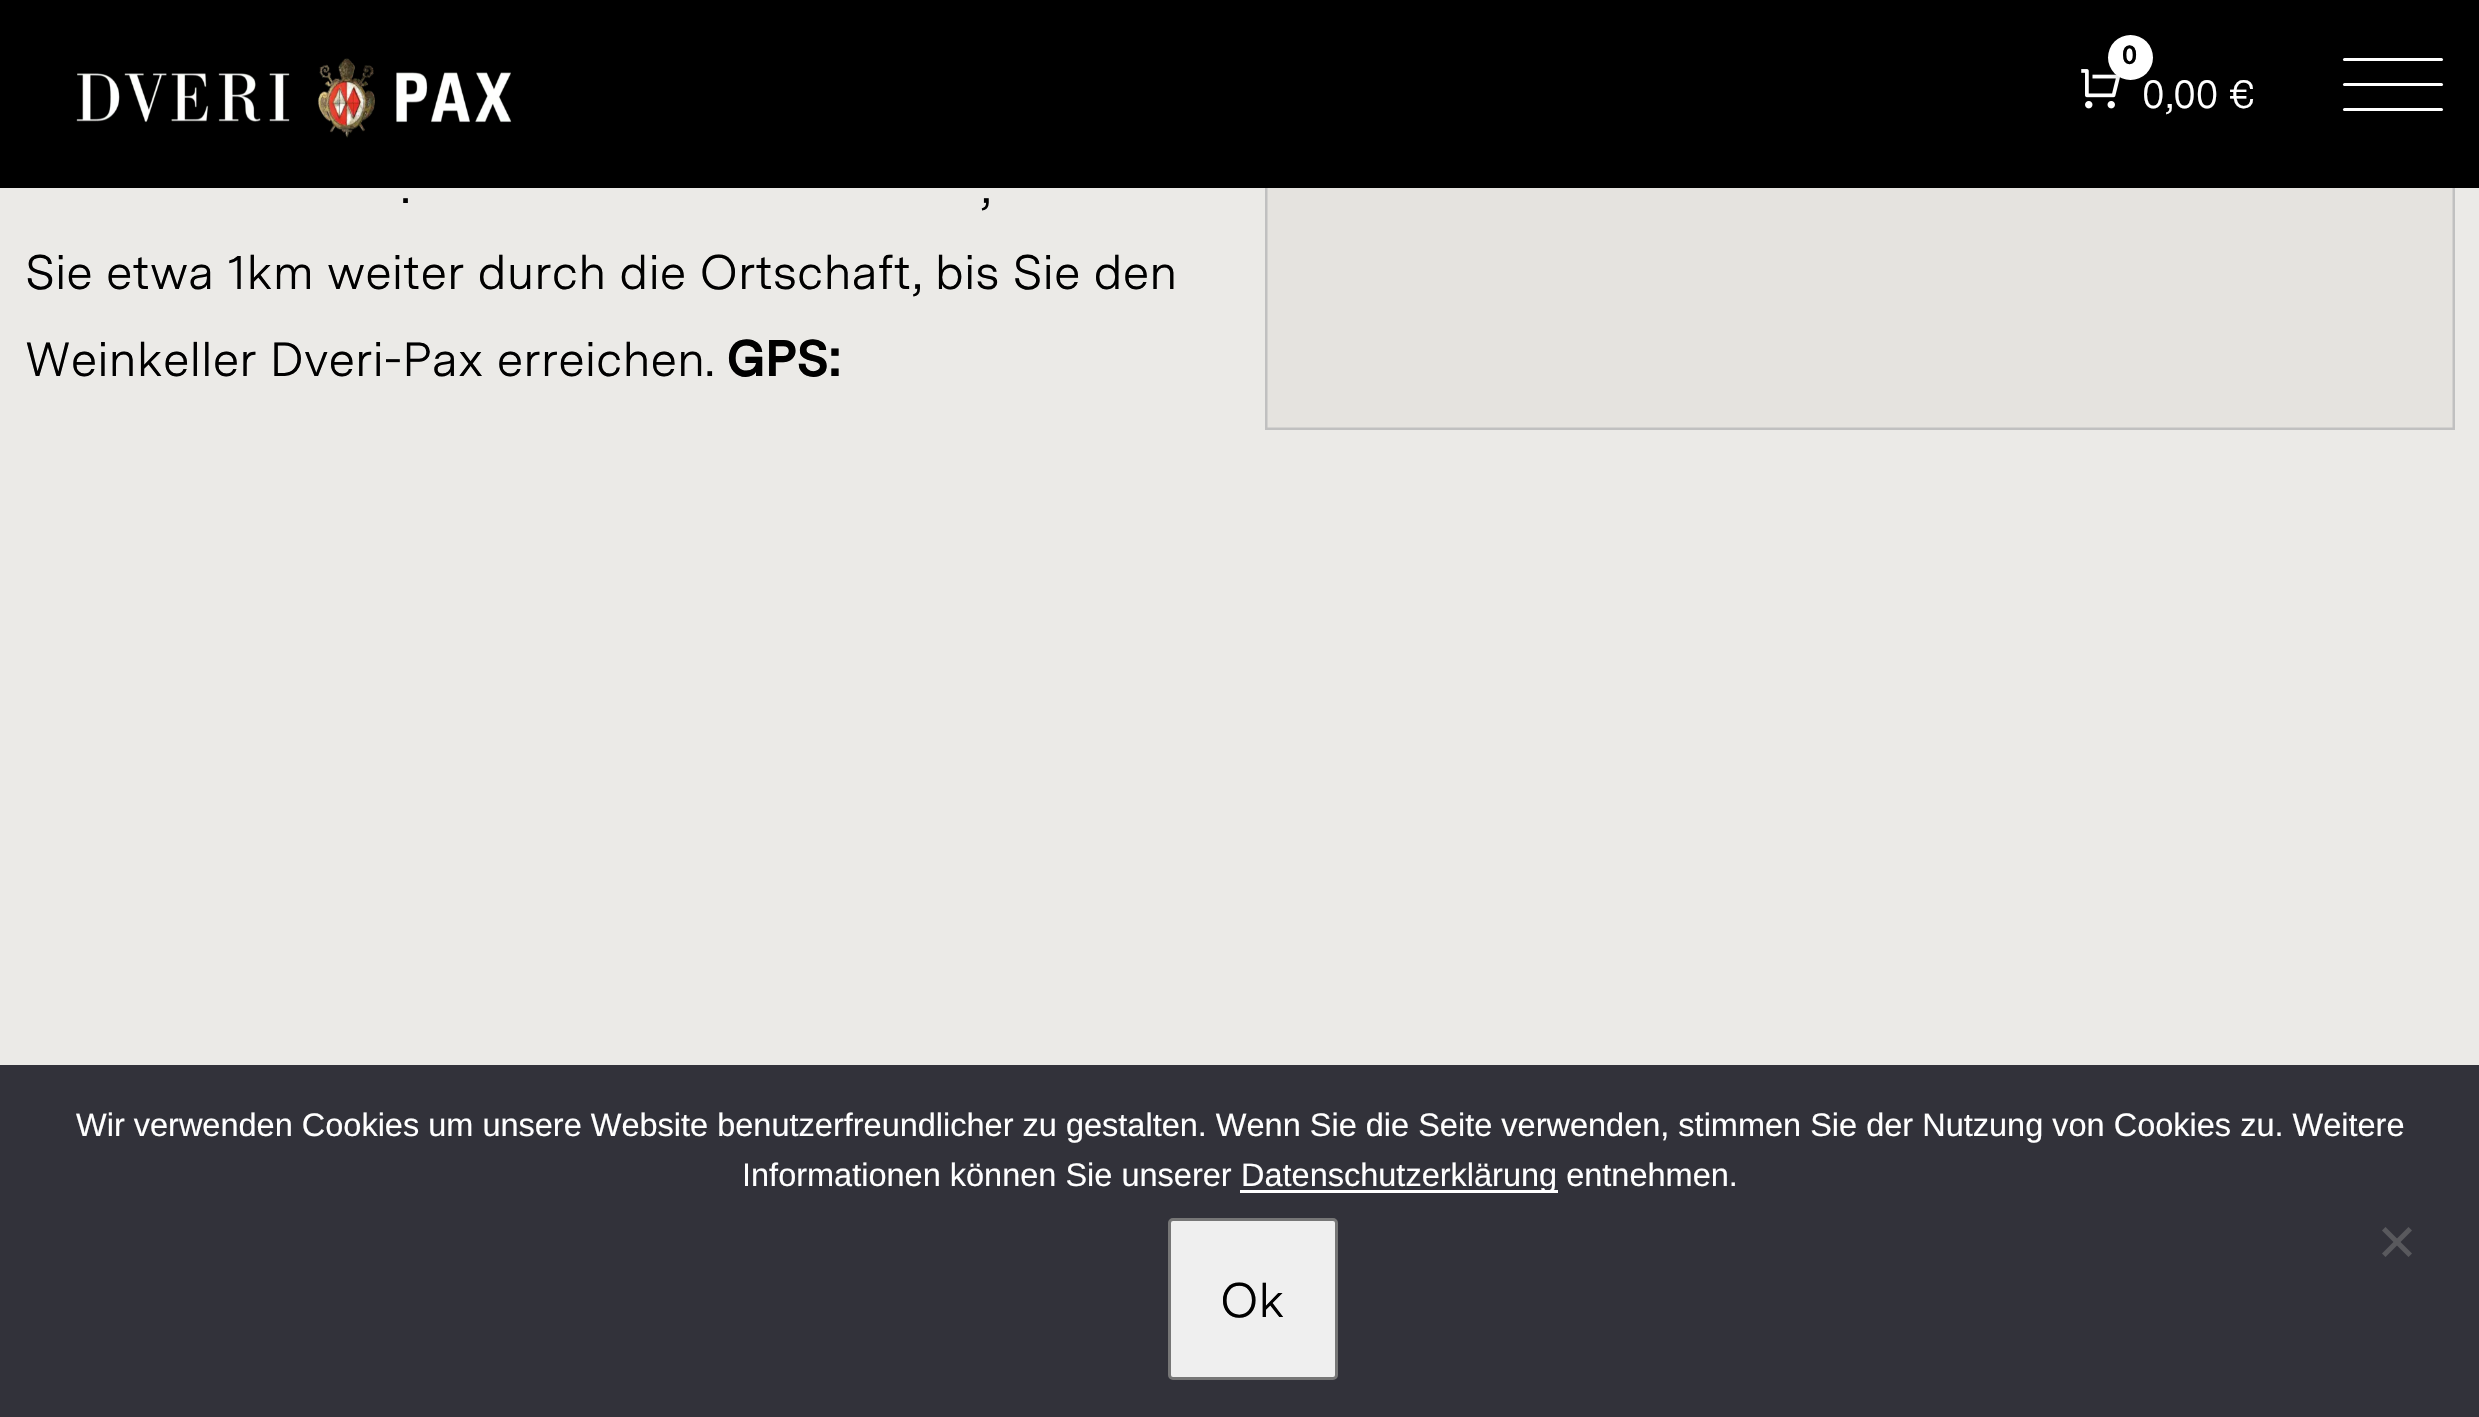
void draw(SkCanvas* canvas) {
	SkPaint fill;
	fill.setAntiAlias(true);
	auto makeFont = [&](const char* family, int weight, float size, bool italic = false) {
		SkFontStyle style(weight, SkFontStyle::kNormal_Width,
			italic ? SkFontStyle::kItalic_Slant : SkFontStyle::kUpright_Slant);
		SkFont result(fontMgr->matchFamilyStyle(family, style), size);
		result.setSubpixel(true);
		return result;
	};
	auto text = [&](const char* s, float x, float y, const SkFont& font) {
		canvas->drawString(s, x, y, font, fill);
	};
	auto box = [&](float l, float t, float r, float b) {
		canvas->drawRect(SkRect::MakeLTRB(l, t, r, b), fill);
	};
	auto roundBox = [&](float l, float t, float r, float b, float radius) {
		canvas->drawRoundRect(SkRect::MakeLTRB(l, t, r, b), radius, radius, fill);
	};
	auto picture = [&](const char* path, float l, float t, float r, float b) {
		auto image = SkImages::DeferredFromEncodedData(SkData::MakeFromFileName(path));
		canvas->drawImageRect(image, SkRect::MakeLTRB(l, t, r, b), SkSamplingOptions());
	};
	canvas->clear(0xFFEBEAE7);
	fill.setColor(0xFF000000);
	box(0, 0, 2479, 188);
	picture("image0.png", 76, 58, 512, 138);
	picture("image1.png", 2081, 69, 2120, 109);
	fill.setColor(0x26000000);
	fill.setMaskFilter(SkMaskFilter::MakeBlur(kNormal_SkBlurStyle, 4));
	canvas->drawRoundRect(SkRect::MakeLTRB(2110, 38, 2155, 83), 22.5f, 22.5f, fill);
	fill.setMaskFilter(nullptr);
	fill.setColor(0xFFFFFFFF);
	canvas->drawCircle(2130.5f, 57.5f, 22.5f, fill);
	roundBox(2343, 108, 2443, 111, 1.5f);
	roundBox(2343, 58, 2443, 61, 1.5f);
	roundBox(2343, 83, 2443, 86, 1.5f);
	picture("image2.png", 1265, 188, 2455, 430);
	fill.setColor(0xFF32323A);
	box(0, 1065, 2479, 1417);
	fill.setColor(0xFFFFFFFF);
	box(1240, 1190, 1558, 1193);
	fill.setColor(0xFF59595D);
	canvas->drawPath(SkPathBuilder().moveTo(2408.5f, 1227).lineTo(2412, 1230.5f).lineTo(2385.5f, 1257).lineTo(2382, 1253.5f).close().detach(), fill);
	canvas->drawPath(SkPathBuilder().moveTo(2382, 1230.5f).lineTo(2385.5f, 1227).lineTo(2412, 1253.5f).lineTo(2408.5f, 1257).close().detach(), fill);
	fill.setColor(0xFFEFEFEF);
	canvas->drawRoundRect(SkRect::MakeLTRB(1169.5f, 1219.5f, 1336.5f, 1378.5f), 3.5f, 3.5f, fill);
	fill.setStyle(SkPaint::kStroke_Style);
	fill.setStrokeWidth(3);
	fill.setColor(0xFF767676);
	canvas->drawRoundRect(SkRect::MakeLTRB(1169.5f, 1219.5f, 1336.5f, 1378.5f), 3.5f, 3.5f, fill);
	auto font1 = makeFont("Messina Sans", 700, 25);
	fill.setStyle(SkPaint::kFill_Style);
	fill.setColor(0xFF000000);
	text("0", 2122, 64, font1);
	auto font2 = makeFont("Messina Sans", 400, 40);
	fill.setColor(0xFFFFFFFF);
	text("0,00 €", 2142, 108, font2);
	auto font3 = makeFont("Messina Sans", 400, 48);
	fill.setColor(0xFF000000);
	text(".", 401, 203, font3);
	text(",", 980, 203, font3);
	text("Sie etwa 1km weiter durch die Ortschaft, bis Sie den", 25, 289, font3);
	text("Weinkeller Dveri-Pax erreichen.", 25, 376, font3);
	auto font4 = makeFont("Messina Sans", 700, 48);
	text("GPS:", 727, 376, font4);
	auto font5 = makeFont("Liberation Sans", 400, 32.5f);
	fill.setColor(0xFFFFFFFF);
	text("Wir verwenden Cookies um unsere Website benutzerfreundlicher zu gestalten. Wenn Sie die Seite verwenden, stimmen Sie der Nutzung von Cookies zu. Weitere", 76, 1136, font5);
	text("Informationen können Sie unserer", 742, 1186, font5);
	text("Datenschutzerklärung entnehmen.", 1241, 1186, font5);
	fill.setColor(0xFF000000);
	text("Ok", 1220, 1317, font3);
}
